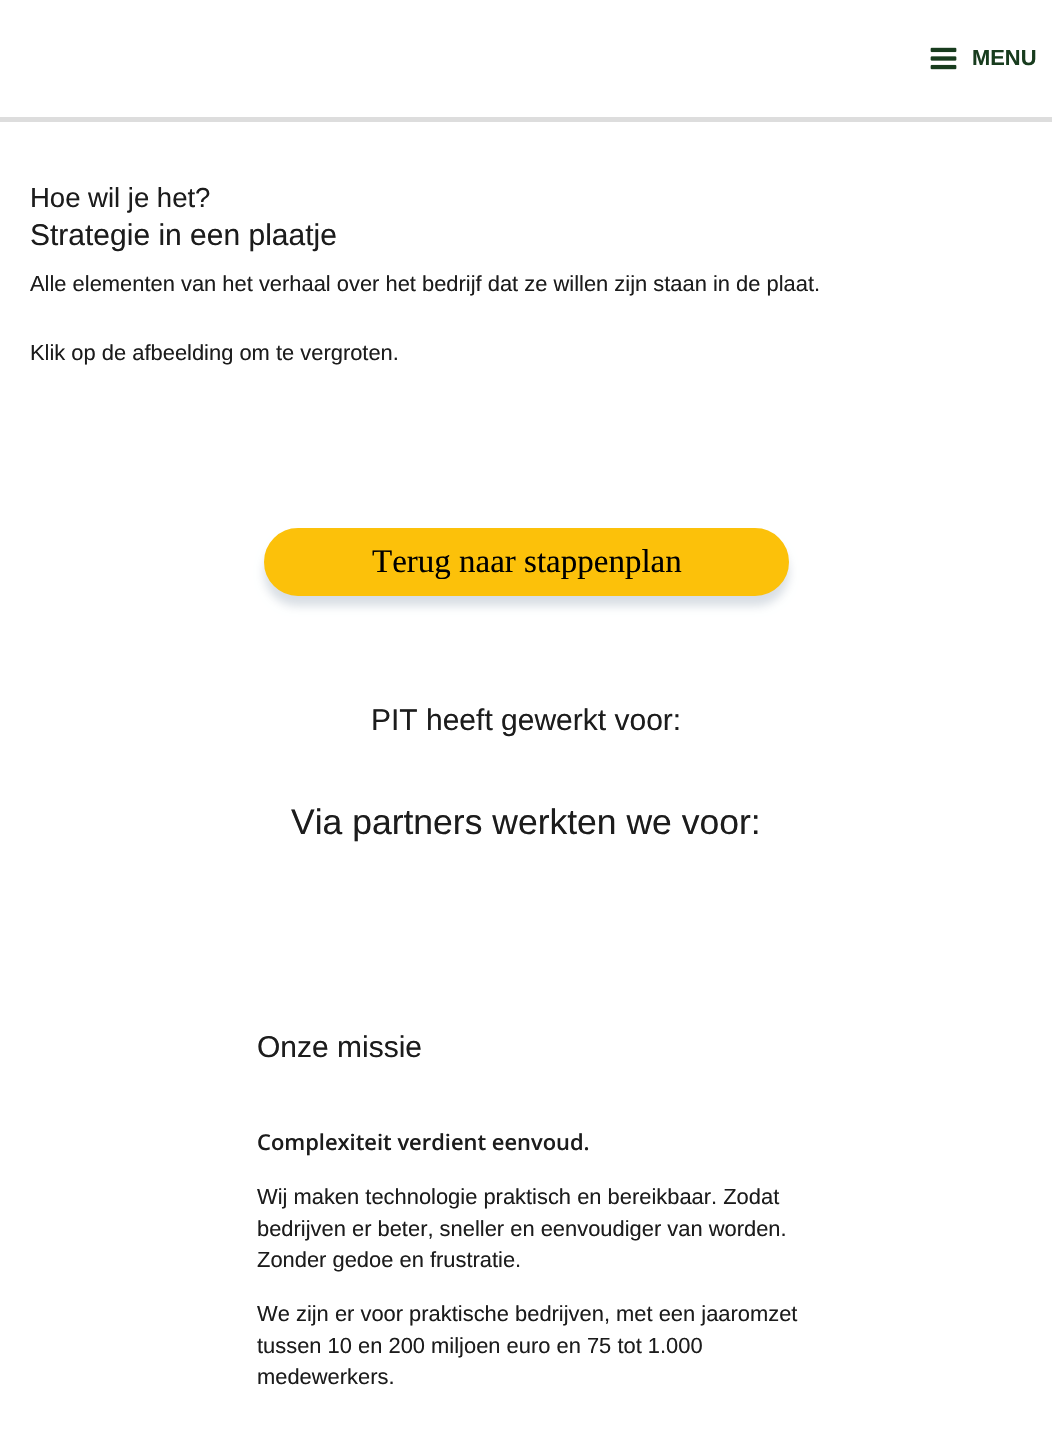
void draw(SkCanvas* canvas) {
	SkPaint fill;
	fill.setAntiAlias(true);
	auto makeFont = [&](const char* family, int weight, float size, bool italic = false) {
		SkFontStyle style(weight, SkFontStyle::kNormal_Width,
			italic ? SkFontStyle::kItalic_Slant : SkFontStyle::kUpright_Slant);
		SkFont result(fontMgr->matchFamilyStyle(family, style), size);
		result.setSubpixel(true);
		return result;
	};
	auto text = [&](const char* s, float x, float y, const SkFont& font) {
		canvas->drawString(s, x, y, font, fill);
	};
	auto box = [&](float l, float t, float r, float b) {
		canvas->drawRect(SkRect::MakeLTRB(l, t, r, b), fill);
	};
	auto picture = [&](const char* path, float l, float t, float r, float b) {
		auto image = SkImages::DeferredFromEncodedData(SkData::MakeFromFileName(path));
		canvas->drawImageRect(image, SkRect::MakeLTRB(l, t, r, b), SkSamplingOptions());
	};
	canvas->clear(0xFFFFFFFF);
	fill.setColor(0xFFDDDDDD);
	box(0, 117, 1052, 122);
	picture("image0.png", 930, 47, 957, 70);
	fill.setColor(0x26032247);
	fill.setMaskFilter(SkMaskFilter::MakeBlur(kNormal_SkBlurStyle, 5));
	canvas->drawRoundRect(SkRect::MakeLTRB(264, 539, 789, 606), 33.5f, 33.5f, fill);
	fill.setMaskFilter(nullptr);
	fill.setColor(0xFFFCC10A);
	canvas->drawRoundRect(SkRect::MakeLTRB(265, 529, 788, 595), 33, 33, fill);
	fill.setStyle(SkPaint::kStroke_Style);
	fill.setStrokeWidth(2);
	canvas->drawRoundRect(SkRect::MakeLTRB(265, 529, 788, 595), 33, 33, fill);
	auto font1 = makeFont("Liberation Sans", 700, 21.9f);
	fill.setStyle(SkPaint::kFill_Style);
	fill.setColor(0xFF183C1E);
	text("MENU", 972, 65, font1);
	auto font2 = makeFont("Liberation Sans", 400, 27.5f);
	fill.setColor(0xFF1C1C1C);
	text("Hoe wil je het?", 30, 207, font2);
	auto font3 = makeFont("Liberation Sans", 400, 30);
	text("Strategie in een plaatje", 30, 245, font3);
	auto font4 = makeFont("Liberation Sans", 400, 21.9f);
	text("Alle elementen van het verhaal over het bedrijf dat ze willen zijn staan in de plaat.", 30, 291, font4);
	text("Klik op de afbeelding om te vergroten.", 30, 360, font4);
	auto font5 = makeFont("Liberation Serif", 400, 33);
	fill.setColor(0xFF000000);
	text("Terug naar stappenplan", 372, 572, font5);
	fill.setColor(0xFF1C1C1C);
	text("PIT heeft gewerkt voor:", 371, 730, font3);
	auto font6 = makeFont("Liberation Sans", 400, 35.5f);
	text("Via partners werkten we voor:", 291, 834, font6);
	text("Onze missie", 257, 1057, font3);
	auto font7 = makeFont("Open Sans", 600, 21.9f);
	text("Complexiteit verdient eenvoud.", 257, 1150, font7);
	text("Wij maken technologie praktisch en bereikbaar. Zodat", 257, 1204, font4);
	text("bedrijven er beter, sneller en eenvoudiger van worden.", 257, 1236, font4);
	text("Zonder gedoe en frustratie.", 257, 1267, font4);
	text("We zijn er voor praktische bedrijven, met een jaaromzet", 257, 1321, font4);
	text("tussen 10 en 200 miljoen euro en 75 tot 1.000", 257, 1353, font4);
	text("medewerkers.", 257, 1384, font4);
}
